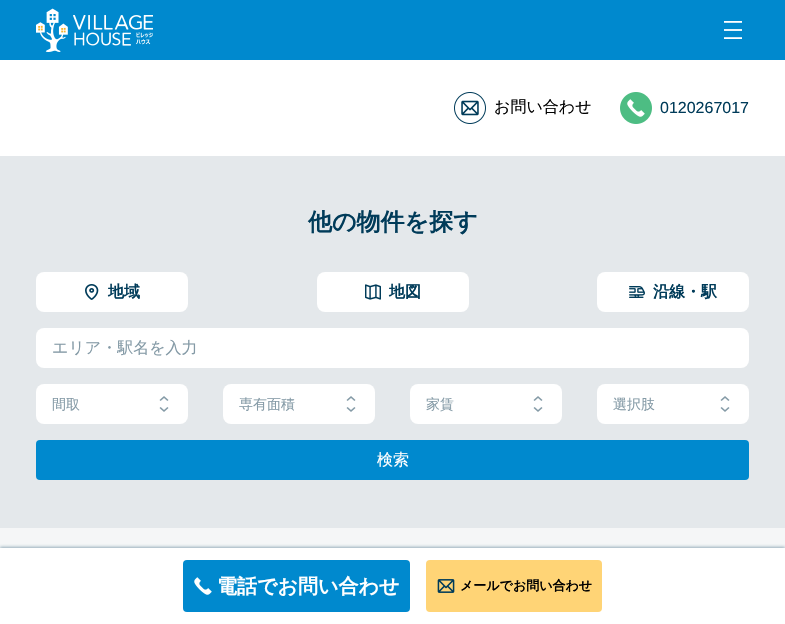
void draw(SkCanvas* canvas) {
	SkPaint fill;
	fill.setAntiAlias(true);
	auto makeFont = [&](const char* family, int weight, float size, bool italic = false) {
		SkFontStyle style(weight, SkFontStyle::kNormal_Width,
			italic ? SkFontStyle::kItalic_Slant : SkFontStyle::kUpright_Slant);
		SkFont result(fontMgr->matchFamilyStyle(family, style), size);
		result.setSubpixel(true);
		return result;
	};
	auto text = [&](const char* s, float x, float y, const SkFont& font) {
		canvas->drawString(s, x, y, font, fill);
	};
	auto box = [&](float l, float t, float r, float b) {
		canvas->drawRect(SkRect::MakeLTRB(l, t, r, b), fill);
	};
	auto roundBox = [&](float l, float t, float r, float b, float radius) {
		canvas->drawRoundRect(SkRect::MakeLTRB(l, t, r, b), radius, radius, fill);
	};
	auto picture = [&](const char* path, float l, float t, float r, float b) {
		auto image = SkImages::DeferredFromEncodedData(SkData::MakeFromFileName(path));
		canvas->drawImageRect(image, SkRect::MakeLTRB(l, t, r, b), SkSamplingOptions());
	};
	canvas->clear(0xFFFFFFFF);
	fill.setColor(0xFF0089CE);
	box(0, 0, 785, 60);
	picture("image0.png", 36, 8, 153, 52);
	picture("image1.png", 724, 21, 742, 39);
	picture("image2.png", 454, 92, 486, 124);
	picture("image3.png", 620, 92, 652, 124);
	fill.setColor(0xFFE4E8EB);
	box(0, 156, 785, 528);
	fill.setColor(0xFFFFFFFF);
	roundBox(36, 272, 188, 312, 8);
	picture("image4.png", 85, 284, 99, 300);
	roundBox(317, 272, 469, 312, 8);
	picture("image5.png", 365, 284, 381, 300);
	roundBox(597, 272, 749, 312, 8);
	picture("image6.png", 629, 286, 645, 298);
	roundBox(36, 328, 749, 368, 8);
	roundBox(36, 384, 188, 424, 8);
	picture("image7.png", 159, 396, 169, 412);
	roundBox(223, 384, 375, 424, 8);
	picture("image7.png", 346, 396, 356, 412);
	roundBox(410, 384, 562, 424, 8);
	picture("image7.png", 533, 396, 543, 412);
	roundBox(597, 384, 749, 424, 8);
	picture("image7.png", 720, 396, 730, 412);
	fill.setColor(0xFF0089CE);
	roundBox(36, 440, 749, 480, 4);
	fill.setColor(0xFFF5F6F7);
	box(0, 528, 785, 548);
	fill.setColor(0x66003B59);
	fill.setMaskFilter(SkMaskFilter::MakeBlur(kNormal_SkBlurStyle, 1.5f));
	canvas->drawRect(SkRect::MakeLTRB(0, 547, 785, 623), fill);
	fill.setMaskFilter(nullptr);
	fill.setColor(0xFFFFFFFF);
	box(0, 548, 785, 624);
	fill.setColor(0xFF0089CE);
	roundBox(183, 560, 410, 612, 4);
	picture("image8.png", 194, 577, 212, 595);
	fill.setColor(0xFFFFD476);
	roundBox(426, 560, 602, 612, 4);
	picture("image9.png", 437, 579, 455, 593);
	auto font1 = makeFont("WenQuanYi Zen Hei", 500, 16);
	fill.setColor(0xFF000000);
	text("お問い合わせ", 494, 112, font1);
	auto font2 = makeFont("Liberation Sans", 400, 16);
	fill.setColor(0xFF003B59);
	text("0120267017", 660, 113, font2);
	auto font3 = makeFont("WenQuanYi Zen Hei", 700, 24);
	text("他の物件を探す", 308, 230, font3);
	auto font4 = makeFont("WenQuanYi Zen Hei", 700, 16);
	text("地域", 108, 297, font4);
	text("地図", 389, 297, font4);
	text("沿線・駅", 653, 297, font4);
	fill.setColor(0xFF849AA6);
	text("エリア・駅名を入力", 52, 353, font1);
	auto font5 = makeFont("WenQuanYi Zen Hei", 500, 14);
	text("間取", 52, 409, font5);
	text("専有面積", 239, 409, font5);
	text("家賃", 426, 409, font5);
	text("選択肢", 613, 409, font5);
	fill.setColor(0xFFFFFFFF);
	text("検索", 377, 465, font1);
	auto font6 = makeFont("WenQuanYi Zen Hei", 700, 20);
	text("電話でお問い合わせ", 217, 593, font6);
	auto font7 = makeFont("WenQuanYi Zen Hei", 700, 13);
	fill.setColor(0xFF000000);
	text("メールでお問い合わせ", 460, 590, font7);
}
